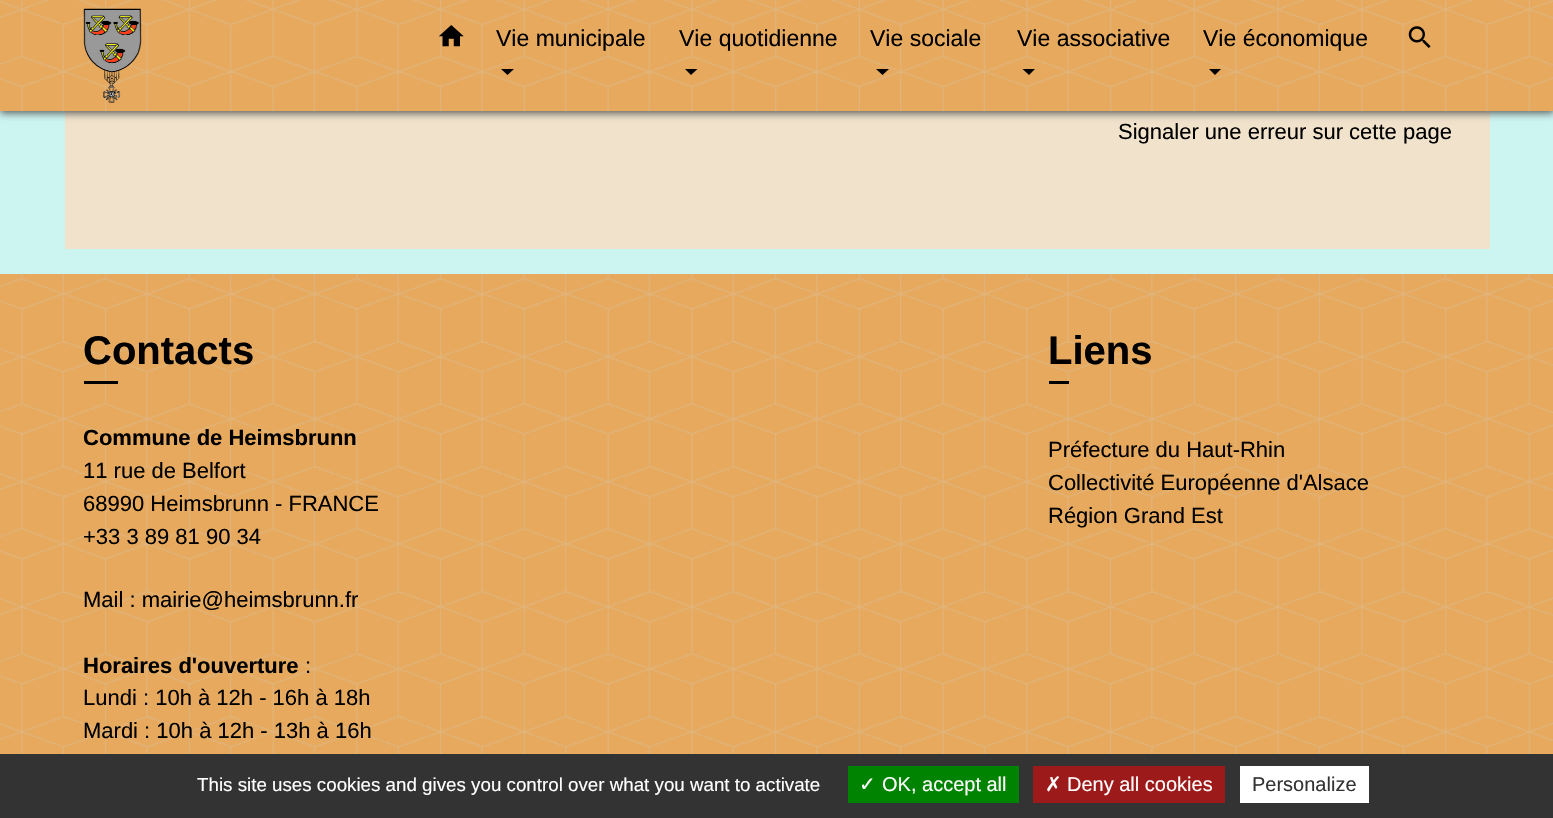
void draw(SkCanvas* canvas) {
	SkPaint fill;
	fill.setAntiAlias(true);
	auto makeFont = [&](const char* family, int weight, float size, bool italic = false) {
		SkFontStyle style(weight, SkFontStyle::kNormal_Width,
			italic ? SkFontStyle::kItalic_Slant : SkFontStyle::kUpright_Slant);
		SkFont result(fontMgr->matchFamilyStyle(family, style), size);
		result.setSubpixel(true);
		return result;
	};
	auto text = [&](const char* s, float x, float y, const SkFont& font) {
		canvas->drawString(s, x, y, font, fill);
	};
	auto box = [&](float l, float t, float r, float b) {
		canvas->drawRect(SkRect::MakeLTRB(l, t, r, b), fill);
	};
	auto picture = [&](const char* path, float l, float t, float r, float b) {
		auto image = SkImages::DeferredFromEncodedData(SkData::MakeFromFileName(path));
		canvas->drawImageRect(image, SkRect::MakeLTRB(l, t, r, b), SkSamplingOptions());
	};
	canvas->clear(0xFFCCF5F2);
	fill.setColor(0xFFF0E2CB);
	box(65, 111, 1490, 249);
	fill.setColor(0xFF535353);
	fill.setMaskFilter(SkMaskFilter::MakeBlur(kNormal_SkBlurStyle, 4));
	canvas->drawRect(SkRect::MakeLTRB(0, 1, 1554, 113), fill);
	fill.setMaskFilter(nullptr);
	fill.setColor(0xFFE6A95D);
	box(0, 0, 1553, 111);
	picture("image0.png", 0, 0, 1553, 112);
	picture("image1.png", 83, 8, 142, 103);
	picture("image2.png", 438, 25, 464, 47);
	fill.setColor(0xFF000000);
	canvas->drawPath(SkPathBuilder().moveTo(501, 69).lineTo(514, 69).lineTo(507.5f, 75).close().detach(), fill);
	canvas->drawPath(SkPathBuilder().moveTo(685, 69).lineTo(697.5f, 69).lineTo(691, 75).close().detach(), fill);
	canvas->drawPath(SkPathBuilder().moveTo(876, 69).lineTo(889, 69).lineTo(882.5f, 75).close().detach(), fill);
	canvas->drawPath(SkPathBuilder().moveTo(1022.5f, 69).lineTo(1035, 69).lineTo(1029, 75).close().detach(), fill);
	canvas->drawPath(SkPathBuilder().moveTo(1209, 69).lineTo(1221, 69).lineTo(1215, 75).close().detach(), fill);
	picture("image3.png", 1408, 26, 1431, 48);
	fill.setColor(0xFFE6A95D);
	box(0, 274, 1553, 754);
	picture("image4.png", 0, 274, 1553, 754);
	fill.setColor(0xFF000000);
	box(84, 381, 118, 384);
	box(1049, 381, 1069, 384);
	fill.setColor(0xFF333333);
	box(0, 754, 1553, 818);
	fill.setColor(0xFF008300);
	box(848, 766, 1019, 803);
	fill.setColor(0xFF9C1A1A);
	box(1033, 766, 1225, 803);
	fill.setColor(0xFFFFFFFF);
	box(1240, 766, 1369, 803);
	auto font1 = makeFont("Liberation Sans", 400, 23);
	fill.setColor(0xFF000000);
	text("Vie municipale", 496, 46, font1);
	text("Vie quotidienne", 679, 46, font1);
	text("Vie sociale", 870, 46, font1);
	text("Vie associative", 1017, 46, font1);
	text("Vie économique", 1203, 46, font1);
	auto font2 = makeFont("Liberation Sans", 400, 22);
	text("Signaler une erreur sur cette page", 1118, 139, font2);
	auto font3 = makeFont("Liberation Sans", 700, 40);
	text("Contacts", 83, 364, font3);
	auto font4 = makeFont("Liberation Sans", 700, 22);
	text("Commune de Heimsbrunn", 83, 445, font4);
	text("11 rue de Belfort", 83, 478, font2);
	text("68990 Heimsbrunn - FRANCE", 83, 511, font2);
	text("+33 3 89 81 90 34", 83, 544, font2);
	text("Mail : mairie@heimsbrunn.fr", 83, 607, font2);
	text("Horaires d'ouverture", 83, 673, font4);
	text(":", 305, 673, font2);
	text("Lundi : 10h à 12h - 16h à 18h", 83, 705, font2);
	text("Mardi : 10h à 12h - 13h à 16h", 83, 738, font2);
	text("Liens", 1048, 364, font3);
	text("Préfecture du Haut-Rhin", 1048, 457, font2);
	text("Collectivité Européenne d'Alsace", 1048, 490, font2);
	text("Région Grand Est", 1048, 523, font2);
	auto font5 = makeFont("Liberation Sans", 400, 18.75f);
	fill.setColor(0xFFFFFFFF);
	text("This site uses cookies and gives you control over what you want to activate", 197, 791, font5);
	auto font6 = makeFont("DejaVu Sans", 400, 20);
	text("✓", 859, 791, font6);
	auto font7 = makeFont("Liberation Sans", 400, 20);
	text("OK, accept all", 882, 791, font7);
	text("✗", 1045, 791, font6);
	text("Deny all cookies", 1067, 791, font7);
	fill.setColor(0xFF333333);
	text("Personalize", 1252, 791, font7);
}
